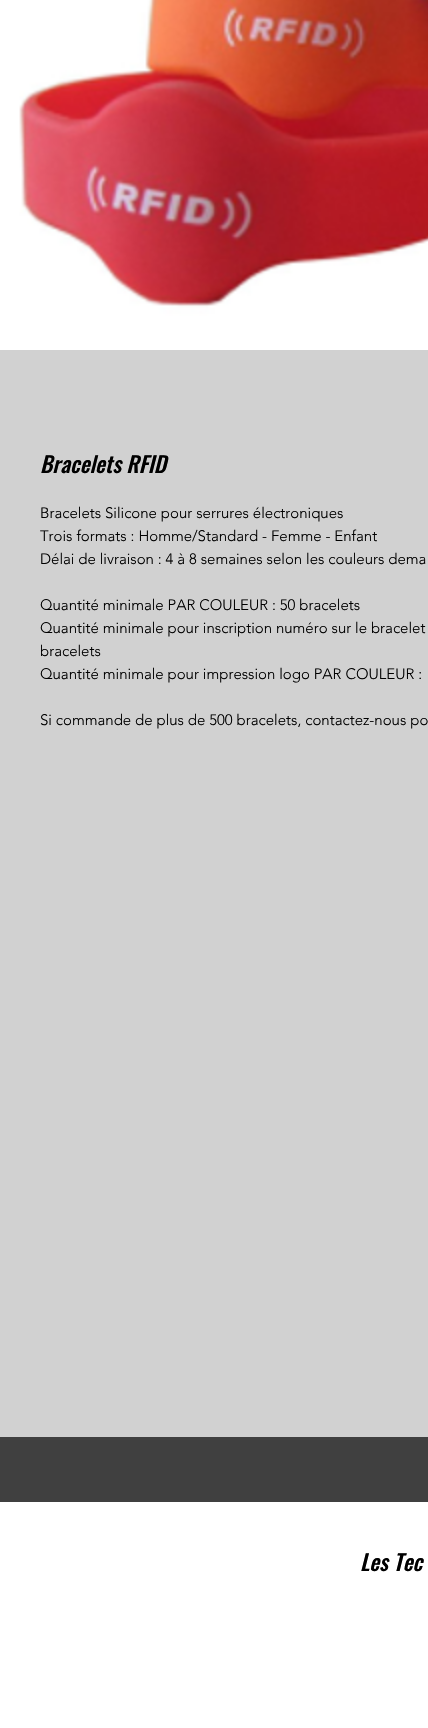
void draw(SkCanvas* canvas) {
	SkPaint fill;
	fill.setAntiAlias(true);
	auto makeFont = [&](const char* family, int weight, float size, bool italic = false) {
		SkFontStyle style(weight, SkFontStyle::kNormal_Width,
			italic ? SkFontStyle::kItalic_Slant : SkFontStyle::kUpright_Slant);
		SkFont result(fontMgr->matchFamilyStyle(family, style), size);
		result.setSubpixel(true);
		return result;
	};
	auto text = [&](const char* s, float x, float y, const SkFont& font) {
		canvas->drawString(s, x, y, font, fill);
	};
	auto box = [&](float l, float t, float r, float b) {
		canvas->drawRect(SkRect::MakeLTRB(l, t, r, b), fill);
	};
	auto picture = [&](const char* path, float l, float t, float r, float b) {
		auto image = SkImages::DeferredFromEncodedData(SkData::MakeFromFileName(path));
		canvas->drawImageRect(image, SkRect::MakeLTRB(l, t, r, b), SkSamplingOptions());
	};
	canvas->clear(0xFF404040);
	fill.setColor(0xFFD1D1D1);
	box(0, 350, 428, 1437);
	picture("image0.png", 0, 0, 428, 350);
	fill.setColor(0xFFFFFFFF);
	box(0, 1502, 428, 1728);
	auto font1 = makeFont("Oswald", 500, 22, true);
	fill.setColor(0xFF000000);
	text("Bracelets RFID", 40, 473, font1);
	auto font2 = makeFont("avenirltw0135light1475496", 300, 15);
	text("Bracelets Silicone pour serrures électroniques", 40, 518, font2);
	text("Trois formats : Homme/Standard - Femme - Enfant", 40, 541, font2);
	text("Délai de livraison : 4 à 8 semaines selon les couleurs dema", 40, 564, font2);
	text("Quantité minimale PAR COULEUR : 50 bracelets", 40, 610, font2);
	text("Quantité minimale pour inscription numéro sur le bracelet", 40, 633, font2);
	text("bracelets", 40, 656, font2);
	text("Quantité minimale pour impression logo PAR COULEUR :", 40, 679, font2);
	text("Si commande de plus de 500 bracelets, contactez-nous po", 40, 725, font2);
	text("Les Tec", 360, 1571, font1);
}
